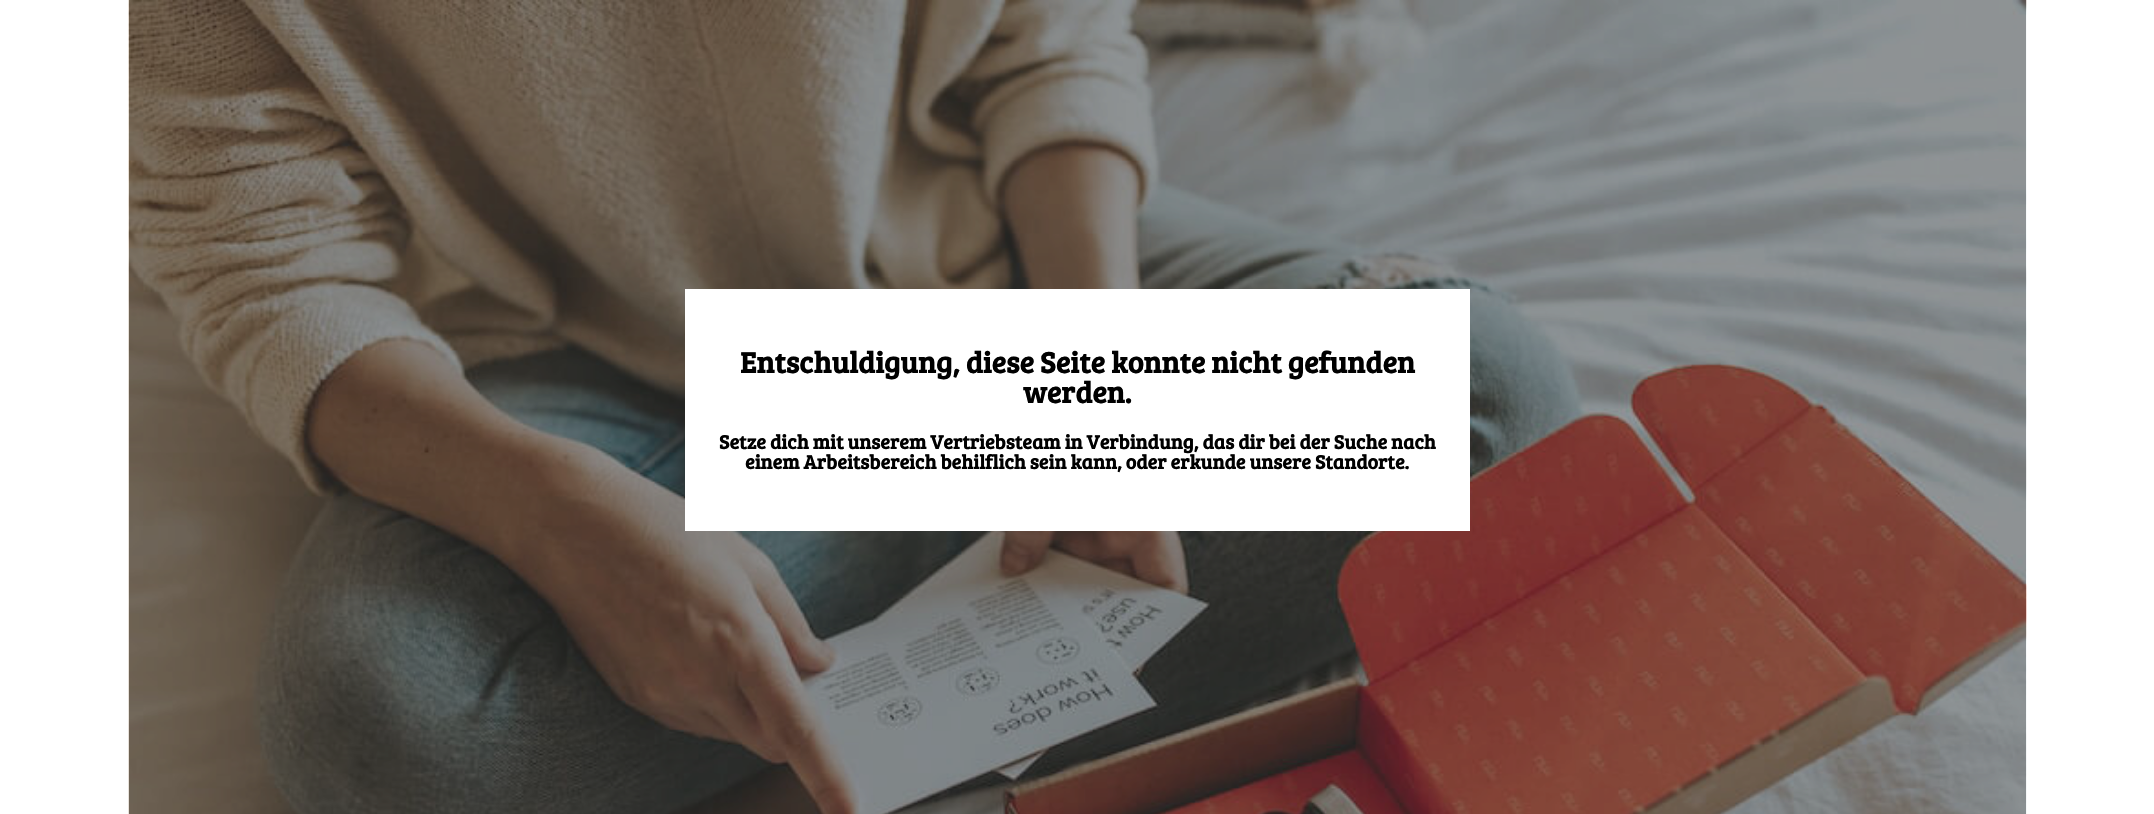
void draw(SkCanvas* canvas) {
	SkPaint fill;
	fill.setAntiAlias(true);
	auto makeFont = [&](const char* family, int weight, float size, bool italic = false) {
		SkFontStyle style(weight, SkFontStyle::kNormal_Width,
			italic ? SkFontStyle::kItalic_Slant : SkFontStyle::kUpright_Slant);
		SkFont result(fontMgr->matchFamilyStyle(family, style), size);
		result.setSubpixel(true);
		return result;
	};
	auto text = [&](const char* s, float x, float y, const SkFont& font) {
		canvas->drawString(s, x, y, font, fill);
	};
	auto box = [&](float l, float t, float r, float b) {
		canvas->drawRect(SkRect::MakeLTRB(l, t, r, b), fill);
	};
	auto picture = [&](const char* path, float l, float t, float r, float b) {
		auto image = SkImages::DeferredFromEncodedData(SkData::MakeFromFileName(path));
		canvas->drawImageRect(image, SkRect::MakeLTRB(l, t, r, b), SkSamplingOptions());
	};
	canvas->clear(0xFFFFFFFF);
	picture("image0.png", 128, 0, 2027, 814);
	fill.setColor(0xFFFFFFFF);
	box(685, 289, 1470, 531);
	auto font1 = makeFont("Bree Serif", 700, 30);
	fill.setColor(0xFF000000);
	text("Entschuldigung, diese Seite konnte nicht gefunden", 740, 373, font1);
	text("werden.", 1023, 403, font1);
	auto font2 = makeFont("Bree Serif", 700, 20);
	text("Setze dich mit unserem Vertriebsteam in Verbindung, das dir bei der Suche nach", 719, 449, font2);
	text("einem Arbeitsbereich behilflich sein kann, oder erkunde unsere Standorte.", 745, 469, font2);
}
